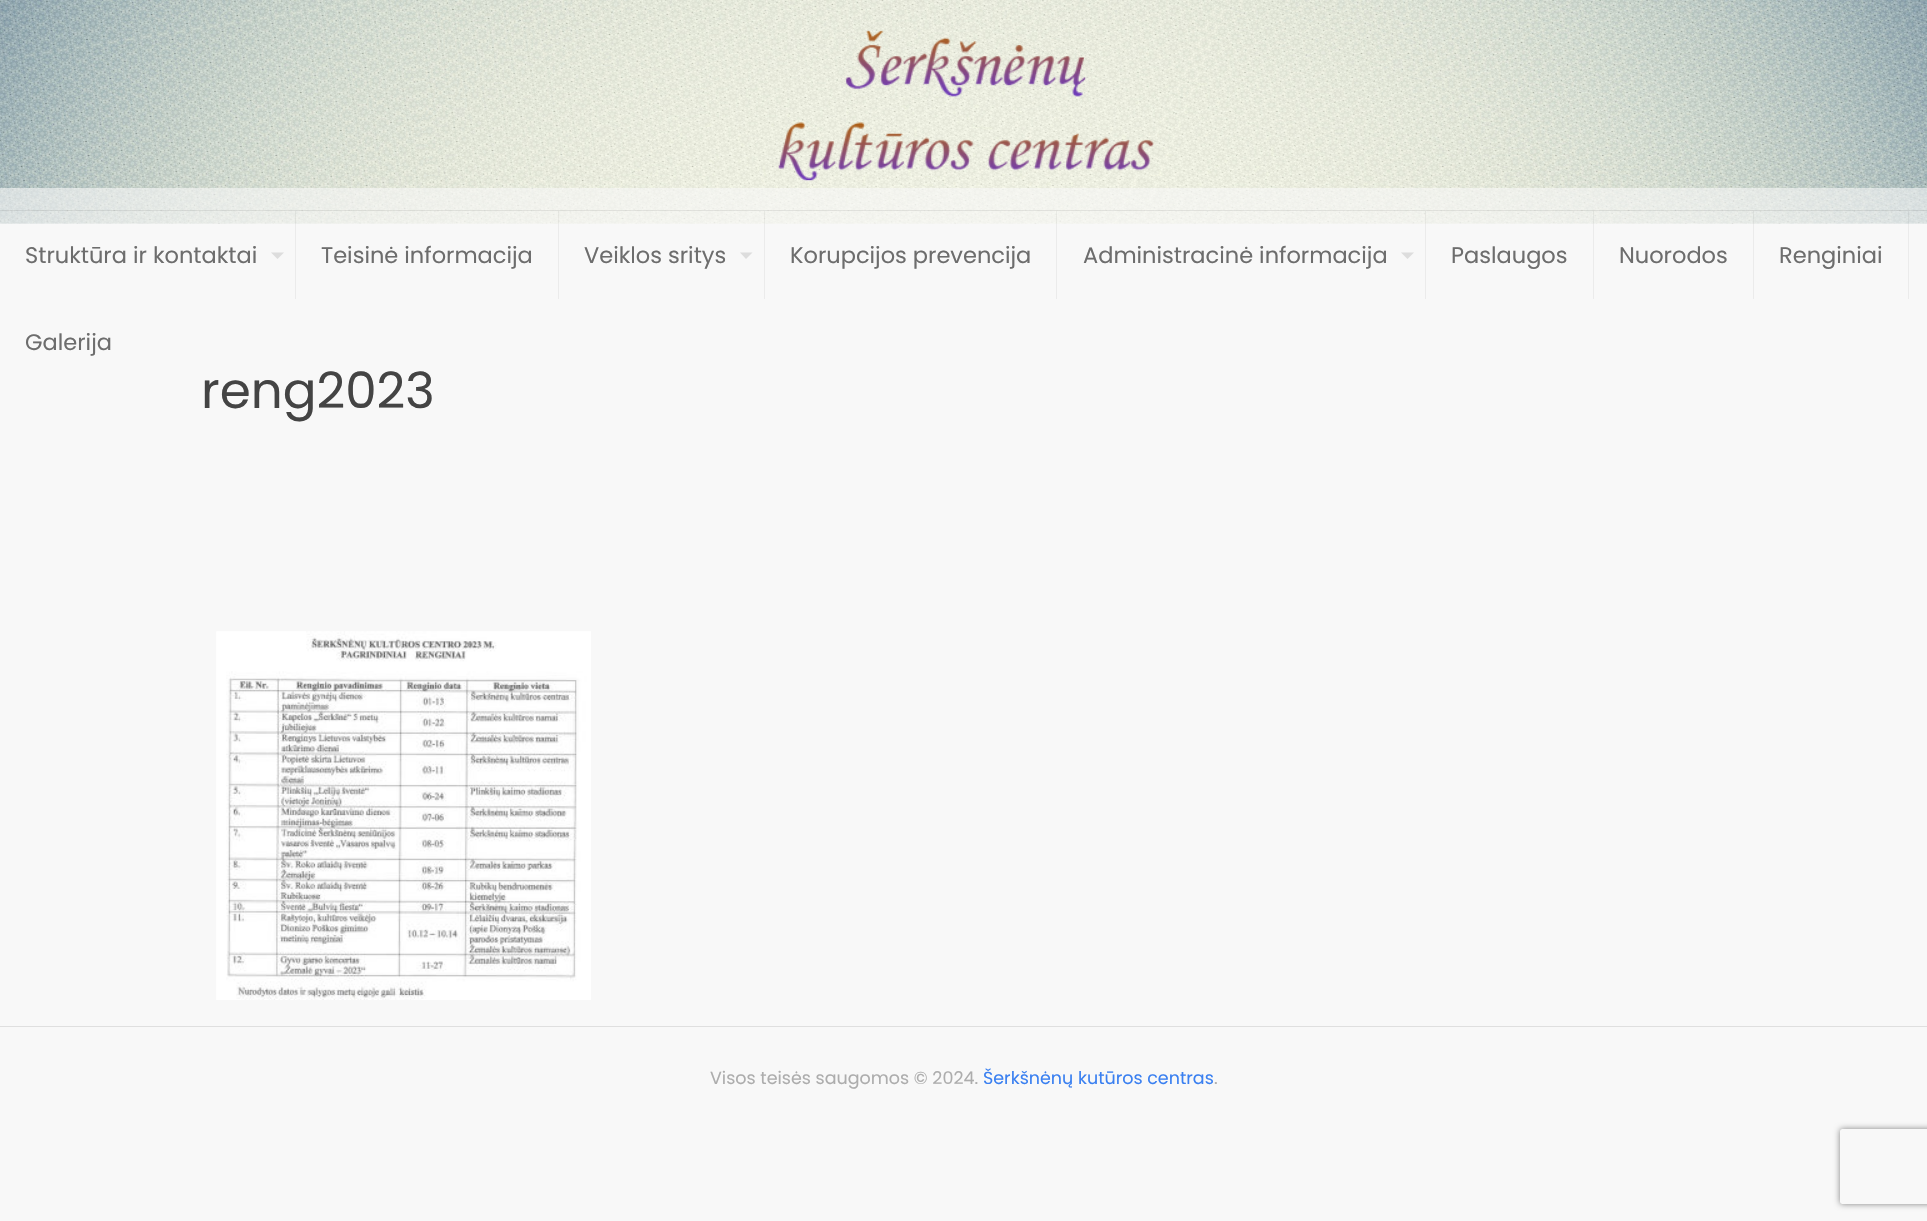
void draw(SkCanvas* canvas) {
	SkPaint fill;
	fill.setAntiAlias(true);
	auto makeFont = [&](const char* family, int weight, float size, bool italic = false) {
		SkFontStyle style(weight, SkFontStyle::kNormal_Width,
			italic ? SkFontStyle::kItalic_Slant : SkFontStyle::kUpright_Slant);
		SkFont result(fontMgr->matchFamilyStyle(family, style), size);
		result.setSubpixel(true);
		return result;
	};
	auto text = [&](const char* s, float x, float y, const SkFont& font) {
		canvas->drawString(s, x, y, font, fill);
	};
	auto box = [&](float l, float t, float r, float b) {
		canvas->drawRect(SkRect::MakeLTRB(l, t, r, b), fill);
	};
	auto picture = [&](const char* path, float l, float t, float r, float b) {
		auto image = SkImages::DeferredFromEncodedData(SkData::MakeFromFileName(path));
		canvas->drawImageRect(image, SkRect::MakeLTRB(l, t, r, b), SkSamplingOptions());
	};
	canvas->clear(0xFFF8F8F8);
	picture("image0.png", 0, 0, 1927, 224);
	fill.setColor(0x9CF7F7F7);
	box(0, 188, 1927, 224);
	fill.setColor(0x14000000);
	box(0, 210, 1927, 211);
	picture("image1.png", 778, 30, 1154, 181);
	fill.setColor(0x0D000000);
	box(295, 211, 296, 299);
	fill.setColor(0xFFDDDDDD);
	canvas->drawPath(SkPathBuilder().moveTo(271, 252.5f).lineTo(284, 252.5f).lineTo(277.5f, 259).close().detach(), fill);
	fill.setColor(0x0D000000);
	box(558, 211, 559, 299);
	box(764, 211, 765, 299);
	fill.setColor(0xFFDDDDDD);
	canvas->drawPath(SkPathBuilder().moveTo(740, 252.5f).lineTo(752.5f, 252.5f).lineTo(746, 259).close().detach(), fill);
	fill.setColor(0x0D000000);
	box(1056, 211, 1057, 299);
	box(1425, 211, 1426, 299);
	fill.setColor(0xFFDDDDDD);
	canvas->drawPath(SkPathBuilder().moveTo(1401, 252.5f).lineTo(1414, 252.5f).lineTo(1407.5f, 259).close().detach(), fill);
	fill.setColor(0x0D000000);
	box(1593, 211, 1594, 299);
	box(1753, 211, 1754, 299);
	box(1908, 211, 1909, 299);
	picture("image2.png", 216, 631, 591, 1000);
	fill.setColor(0xFFDFDFDF);
	box(0, 1026, 1927, 1027);
	canvas->save();
	canvas->clipPath(SkPathBuilder(SkPathFillType::kEvenOdd).moveTo(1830, 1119).lineTo(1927, 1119).lineTo(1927, 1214).lineTo(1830, 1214).close().moveTo(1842.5f, 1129).lineTo(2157.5f, 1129).cubicTo(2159, 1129, 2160, 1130, 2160, 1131.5f).lineTo(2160, 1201.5f).cubicTo(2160, 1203, 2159, 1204, 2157.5f, 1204).lineTo(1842.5f, 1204).cubicTo(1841, 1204, 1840, 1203, 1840, 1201.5f).lineTo(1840, 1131.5f).cubicTo(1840, 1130, 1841, 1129, 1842.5f, 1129).close().detach(), true);
	fill.setColor(0xFF808080);
	fill.setMaskFilter(SkMaskFilter::MakeBlur(kNormal_SkBlurStyle, 3));
	canvas->drawRoundRect(SkRect::MakeLTRB(1840, 1129, 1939, 1204), 2.5f, 2.5f, fill);
	fill.setMaskFilter(nullptr);
	canvas->restore();
	auto font1 = makeFont("Poppins", 400, 22.5f);
	fill.setColor(0xFF6D6D6D);
	text("Struktūra ir kontaktai", 25, 263, font1);
	text("Teisinė informacija", 321, 263, font1);
	text("Veiklos sritys", 584, 263, font1);
	text("Korupcijos prevencija", 790, 263, font1);
	text("Administracinė informacija", 1083, 263, font1);
	text("Paslaugos", 1451, 263, font1);
	text("Nuorodos", 1619, 263, font1);
	text("Renginiai", 1779, 263, font1);
	text("Galerija", 25, 350, font1);
	auto font2 = makeFont("Poppins", 400, 50);
	fill.setColor(0xFF444444);
	text("reng2023", 201, 408, font2);
	auto font3 = makeFont("Poppins", 400, 17.5f);
	fill.setColor(0xFFADADAD);
	text("Visos teisės saugomos © 2024.", 710, 1084, font3);
	fill.setColor(0xFF3A80F1);
	text("Šerkšnėnų kutūros centras", 983, 1084, font3);
	fill.setColor(0xFFADADAD);
	text(".", 1214, 1084, font3);
}
